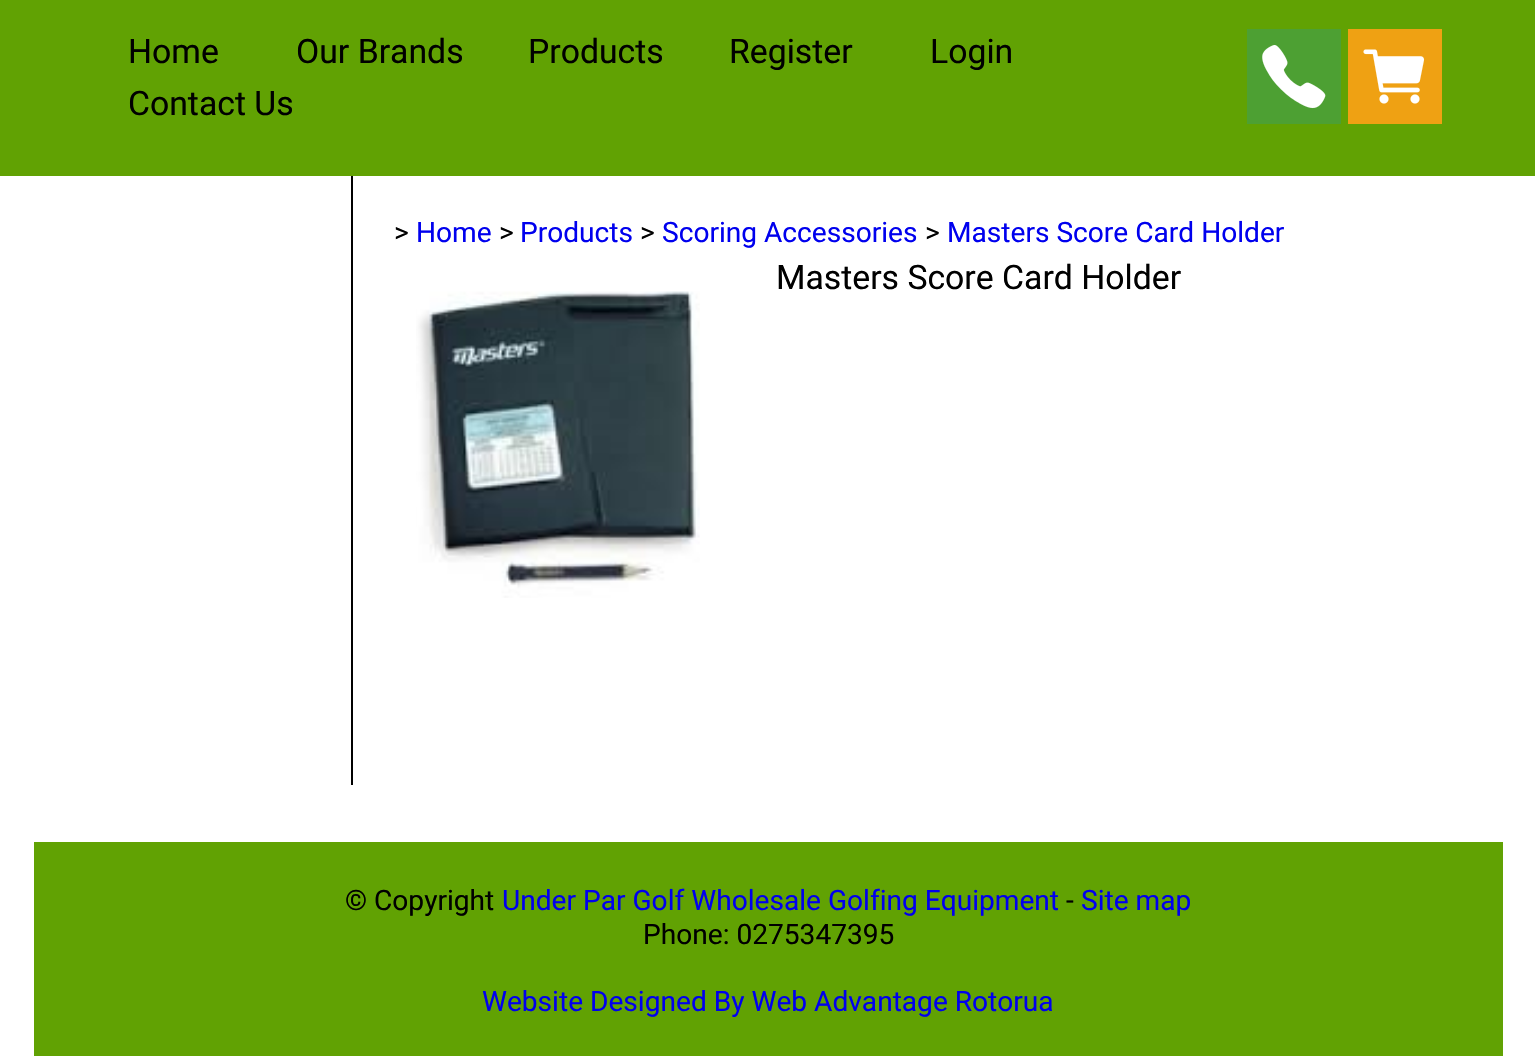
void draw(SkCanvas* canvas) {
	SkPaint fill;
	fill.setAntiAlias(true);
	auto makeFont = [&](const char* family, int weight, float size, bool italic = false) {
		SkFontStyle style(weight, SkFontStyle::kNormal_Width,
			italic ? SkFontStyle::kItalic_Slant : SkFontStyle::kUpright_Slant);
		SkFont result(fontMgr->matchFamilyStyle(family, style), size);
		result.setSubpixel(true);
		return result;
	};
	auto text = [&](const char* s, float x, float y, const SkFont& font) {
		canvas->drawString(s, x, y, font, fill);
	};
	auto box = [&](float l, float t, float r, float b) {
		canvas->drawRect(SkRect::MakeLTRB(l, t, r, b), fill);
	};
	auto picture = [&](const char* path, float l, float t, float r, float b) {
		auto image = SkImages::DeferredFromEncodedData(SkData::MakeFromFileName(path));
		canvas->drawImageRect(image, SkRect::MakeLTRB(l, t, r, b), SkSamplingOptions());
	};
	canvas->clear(0xFFFFFFFF);
	fill.setColor(0xFF61A203);
	box(0, 0, 1535, 176);
	fill.setColor(0xFF4DA033);
	box(1247, 29, 1341, 124);
	picture("image0.png", 1262, 45, 1326, 109);
	fill.setColor(0xFFEFA113);
	box(1348, 29, 1442, 124);
	picture("image1.png", 1363, 49, 1425, 104);
	fill.setColor(0xFF000000);
	box(351, 176, 353, 785);
	picture("image2.png", 416, 291, 700, 598);
	fill.setColor(0xFF61A203);
	box(34, 842, 1503, 1056);
	auto font1 = makeFont("Roboto", 400, 33.75f);
	fill.setColor(0xFF000000);
	text("Home", 128, 63, font1);
	text("Our Brands", 296, 63, font1);
	text("Products", 528, 63, font1);
	text("Register", 729, 63, font1);
	text("Login", 930, 63, font1);
	text("Contact Us", 128, 115, font1);
	auto font2 = makeFont("Roboto", 400, 28.1f);
	text(">", 394, 242, font2);
	fill.setColor(0xFF0000EE);
	text("Home", 416, 242, font2);
	fill.setColor(0xFF000000);
	text(">", 499, 242, font2);
	fill.setColor(0xFF0000EE);
	text("Products", 520, 242, font2);
	fill.setColor(0xFF000000);
	text(">", 640, 242, font2);
	fill.setColor(0xFF0000EE);
	text("Scoring Accessories", 662, 242, font2);
	fill.setColor(0xFF000000);
	text(">", 925, 242, font2);
	fill.setColor(0xFF0000EE);
	text("Masters Score Card Holder", 947, 242, font2);
	fill.setColor(0xFF000000);
	text("Masters Score Card Holder", 776, 289, font1);
	text("© Copyright", 345, 910, font2);
	fill.setColor(0xFF0000EE);
	text("Under Par Golf Wholesale Golfing Equipment", 502, 910, font2);
	fill.setColor(0xFF000000);
	text("-", 1066, 910, font2);
	fill.setColor(0xFF0000EE);
	text("Site map", 1081, 910, font2);
	fill.setColor(0xFF000000);
	text("Phone: 0275347395", 643, 944, font2);
	fill.setColor(0xFF0000EE);
	text("Website Designed By Web Advantage Rotorua", 482, 1011, font2);
}
